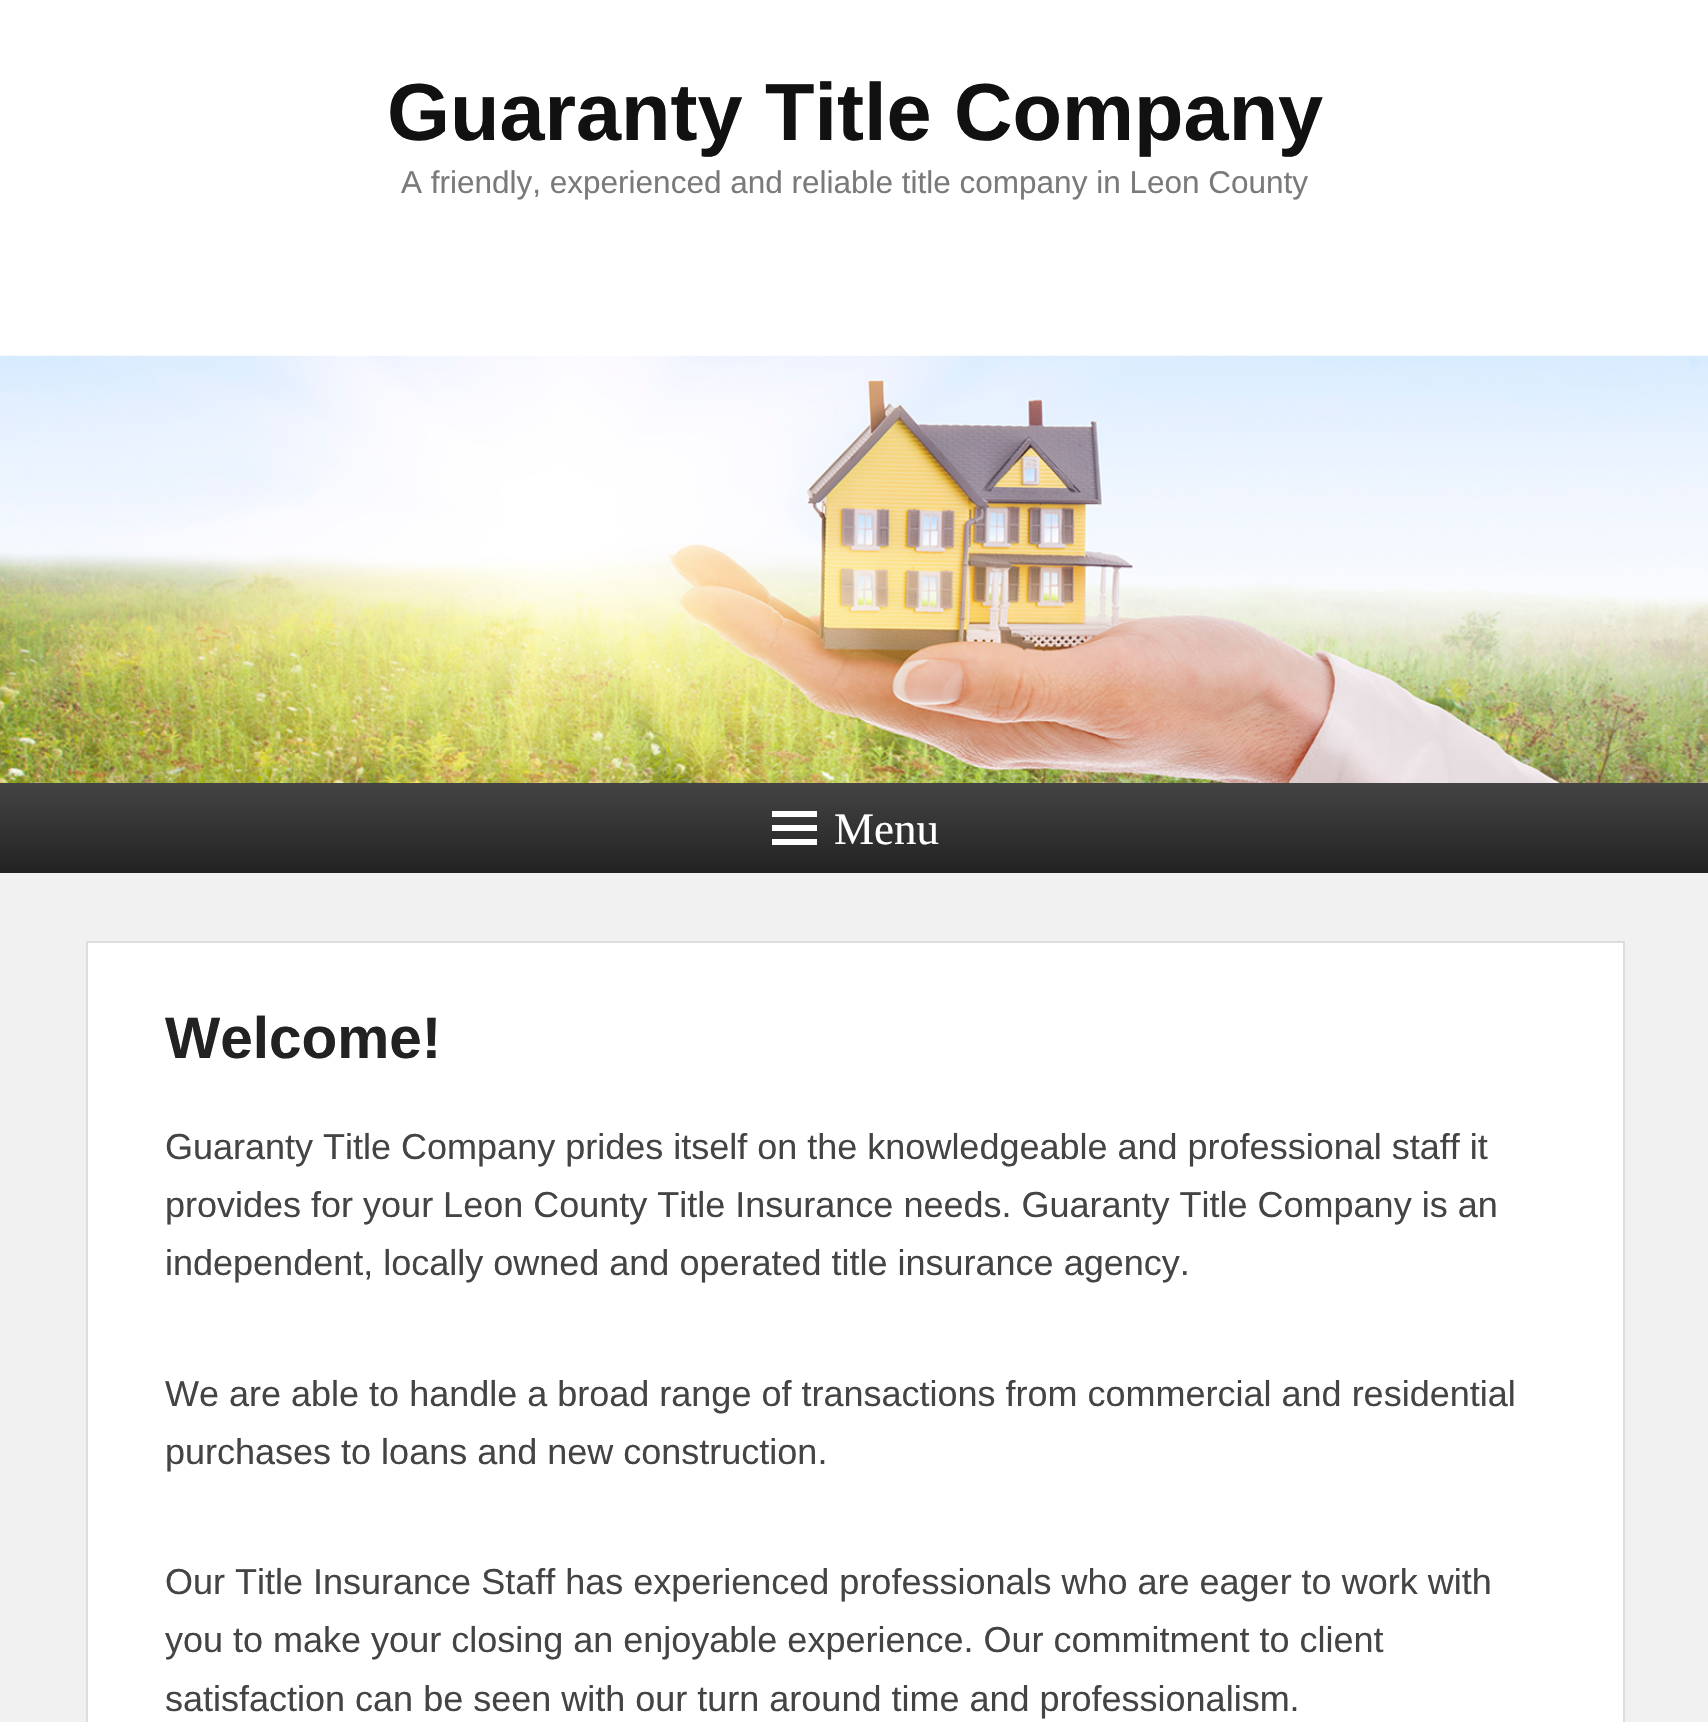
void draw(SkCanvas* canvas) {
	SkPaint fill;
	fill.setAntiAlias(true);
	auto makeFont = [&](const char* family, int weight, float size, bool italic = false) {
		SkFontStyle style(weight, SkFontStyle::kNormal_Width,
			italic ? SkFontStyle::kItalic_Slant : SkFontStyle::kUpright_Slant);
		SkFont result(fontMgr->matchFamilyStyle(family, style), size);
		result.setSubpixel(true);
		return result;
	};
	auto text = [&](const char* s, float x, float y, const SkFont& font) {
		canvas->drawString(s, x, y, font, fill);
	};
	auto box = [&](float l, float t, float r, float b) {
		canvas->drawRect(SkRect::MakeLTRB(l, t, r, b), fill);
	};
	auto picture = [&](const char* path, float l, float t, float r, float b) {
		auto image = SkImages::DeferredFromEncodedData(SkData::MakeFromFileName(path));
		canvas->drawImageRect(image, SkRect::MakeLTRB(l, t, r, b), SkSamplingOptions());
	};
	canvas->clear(0xFFF1F1F1);
	fill.setColor(0xFFFFFFFF);
	box(0, 0, 1708, 356);
	picture("image0.png", 0, 355, 1708, 783);
	{
		const SkColor colors[] = {0xFF444444, 0xFF222222};
		const float stops[] = {0, 1};
		const SkPoint ends[] = {{855, 783}, {855, 873}};
		fill.setShader(SkGradientShader::MakeLinear(ends, colors, stops, 2, SkTileMode::kClamp));
		fill.setAlpha(255);
	}
	box(0, 783, 1708, 873);
	fill.setShader(nullptr);
	fill.setColor(0xFFFFFFFF);
	canvas->drawPath(SkPathBuilder().moveTo(772, 845).lineTo(772, 839).lineTo(817, 839).lineTo(817, 845).close().moveTo(772, 811).lineTo(817, 811).lineTo(817, 817).lineTo(772, 817).close().moveTo(772, 831).lineTo(772, 825).lineTo(817, 825).lineTo(817, 831).close().detach(), fill);
	canvas->drawRect(SkRect::MakeLTRB(87, 942, 1624, 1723), fill);
	fill.setStyle(SkPaint::kStroke_Style);
	fill.setStrokeWidth(2);
	fill.setColor(0xFFDDDDDD);
	canvas->drawRect(SkRect::MakeLTRB(87, 942, 1624, 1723), fill);
	auto font1 = makeFont("Liberation Sans", 700, 81);
	fill.setStyle(SkPaint::kFill_Style);
	fill.setColor(0xFF111111);
	text("Guaranty Title Company", 387, 140, font1);
	auto font2 = makeFont("Liberation Sans", 400, 31.5f);
	fill.setColor(0xFF7A7A7A);
	text("A friendly, experienced and reliable title company in Leon County", 401, 193, font2);
	auto font3 = makeFont("Liberation Serif", 400, 45);
	fill.setColor(0xFFFFFFFF);
	text("Menu", 834, 844, font3);
	auto font4 = makeFont("Liberation Sans", 700, 58.5f);
	fill.setColor(0xFF222222);
	text("Welcome!", 165, 1058, font4);
	auto font5 = makeFont("Liberation Sans", 400, 36);
	fill.setColor(0xFF444444);
	text("Guaranty Title Company prides itself on the knowledgeable and professional staff it", 165, 1159, font5);
	text("provides for your Leon County Title Insurance needs. Guaranty Title Company is an", 165, 1217, font5);
	text("independent, locally owned and operated title insurance agency.", 165, 1275, font5);
	text("We are able to handle a broad range of transactions from commercial and residential", 165, 1406, font5);
	text("purchases to loans and new construction.", 165, 1464, font5);
	text("Our Title Insurance Staff has experienced professionals who are eager to work with", 165, 1594, font5);
	text("you to make your closing an enjoyable experience. Our commitment to client", 165, 1652, font5);
	text("satisfaction can be seen with our turn around time and professionalism.", 165, 1711, font5);
}
